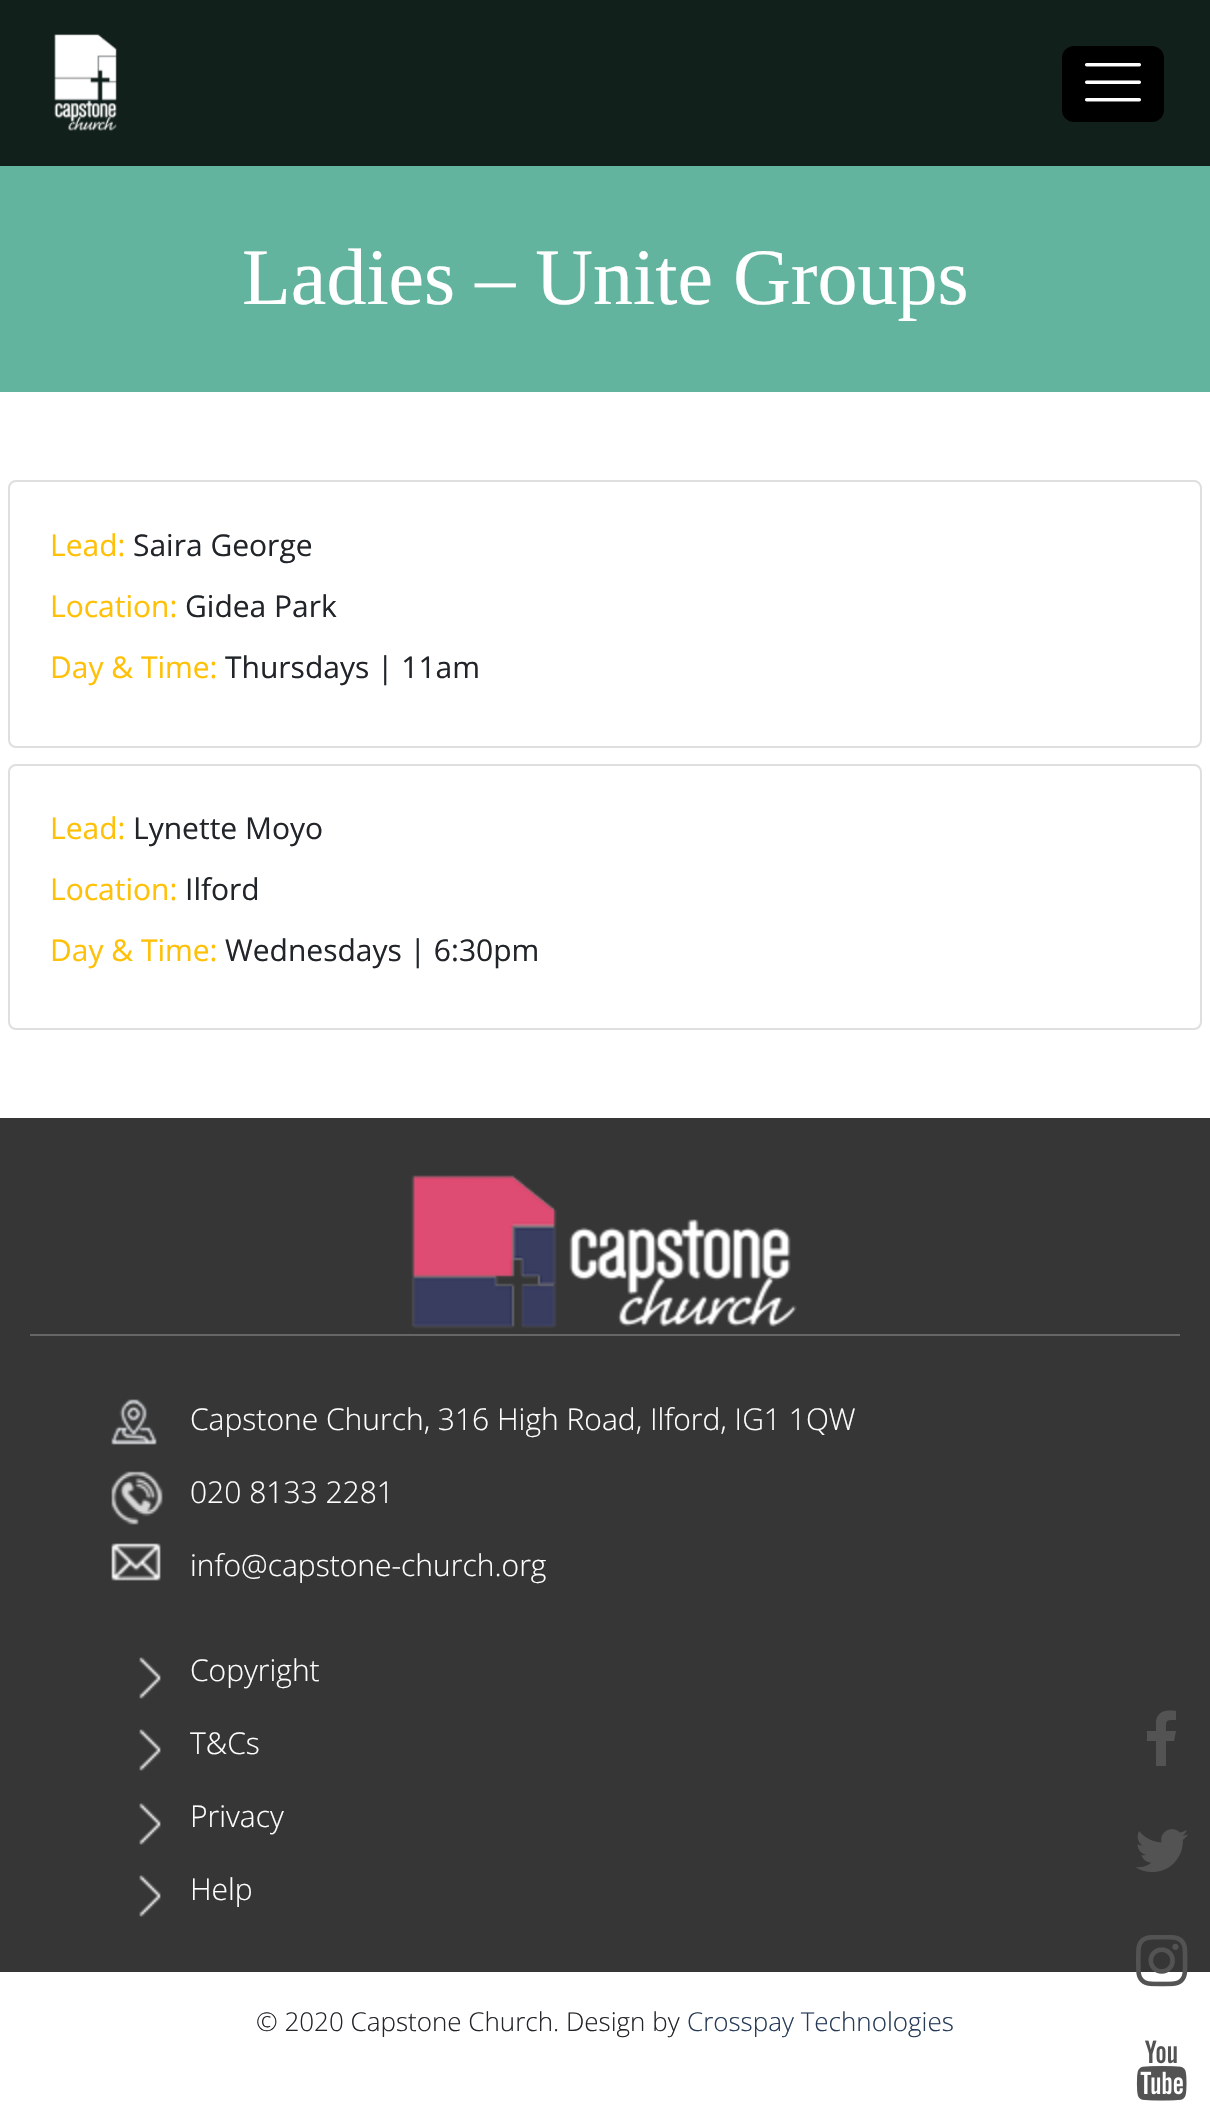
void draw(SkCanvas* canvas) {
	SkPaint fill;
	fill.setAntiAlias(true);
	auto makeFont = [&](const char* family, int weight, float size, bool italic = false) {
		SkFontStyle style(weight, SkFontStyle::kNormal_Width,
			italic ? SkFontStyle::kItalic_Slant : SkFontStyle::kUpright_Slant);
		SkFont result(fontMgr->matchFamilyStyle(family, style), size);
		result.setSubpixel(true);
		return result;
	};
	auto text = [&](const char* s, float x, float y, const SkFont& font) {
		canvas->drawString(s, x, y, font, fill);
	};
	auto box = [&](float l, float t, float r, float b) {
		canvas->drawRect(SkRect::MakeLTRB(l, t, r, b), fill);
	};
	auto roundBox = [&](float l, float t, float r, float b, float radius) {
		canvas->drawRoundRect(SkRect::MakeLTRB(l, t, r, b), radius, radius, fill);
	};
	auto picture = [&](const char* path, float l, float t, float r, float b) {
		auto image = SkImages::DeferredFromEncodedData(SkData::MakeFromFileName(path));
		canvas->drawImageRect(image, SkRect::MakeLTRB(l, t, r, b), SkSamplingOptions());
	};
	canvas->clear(0xFFFFFFFF);
	fill.setColor(0xFF12201C);
	box(0, 0, 1210, 166);
	picture("image0.png", 54, 34, 117, 131);
	fill.setColor(0xFF000000);
	roundBox(1062, 46, 1164, 122, 12);
	picture("image1.png", 1085, 63, 1141, 102);
	fill.setColor(0xFF63B49E);
	box(0, 166, 1210, 392);
	fill.setStyle(SkPaint::kStroke_Style);
	fill.setStrokeWidth(2);
	fill.setColor(0xFFDFDFDF);
	canvas->drawRoundRect(SkRect::MakeLTRB(9, 481, 1201, 747), 7, 7, fill);
	canvas->drawRoundRect(SkRect::MakeLTRB(9, 765, 1201, 1029), 7, 7, fill);
	fill.setStyle(SkPaint::kFill_Style);
	fill.setColor(0xFF363636);
	box(0, 1118, 1210, 1972);
	fill.setColor(0xFF666666);
	box(30, 1334, 1180, 1336);
	picture("image2.png", 411, 1175, 797, 1329);
	picture("image3.png", 111, 1399, 157, 1445);
	picture("image4.png", 111, 1471, 163, 1525);
	picture("image5.png", 111, 1543, 161, 1581);
	picture("image6.png", 139, 1657, 161, 1699);
	picture("image6.png", 139, 1729, 161, 1771);
	picture("image6.png", 139, 1803, 161, 1845);
	picture("image6.png", 139, 1875, 161, 1917);
	fill.setColor(0xFF535353);
	canvas->drawPath(SkPathBuilder().moveTo(1176, 1711).lineTo(1176, 1720).cubicTo(1165, 1720, 1166, 1720, 1166, 1731).lineTo(1176, 1731).lineTo(1174, 1741).lineTo(1166, 1741).lineTo(1166, 1766).lineTo(1156, 1766).lineTo(1156, 1741).lineTo(1147, 1741).lineTo(1147, 1731).lineTo(1156, 1731).lineTo(1156, 1721).cubicTo(1158, 1710, 1168, 1710, 1176, 1711).close().detach(), fill);
	picture("image7.png", 1136, 1829, 1188, 1872);
	picture("image8.png", 1136, 1935, 1188, 1987);
	picture("image9.png", 1136, 2040, 1187, 2101);
	auto font1 = makeFont("Liberation Serif", 400, 80);
	fill.setColor(0xFFFFFFFF);
	text("Ladies – Unite Groups", 242, 304, font1);
	auto font2 = makeFont("Open Sans", 400, 30);
	fill.setColor(0xFFFFC107);
	text("Lead:", 50, 556, font2);
	fill.setColor(0xFF212529);
	text("Saira George", 133, 556, font2);
	fill.setColor(0xFFFFC107);
	text("Location:", 50, 617, font2);
	fill.setColor(0xFF212529);
	text("Gidea Park", 185, 617, font2);
	fill.setColor(0xFFFFC107);
	text("Day & Time:", 50, 678, font2);
	fill.setColor(0xFF212529);
	text("Thursdays | 11am", 225, 678, font2);
	fill.setColor(0xFFFFC107);
	text("Lead:", 50, 839, font2);
	fill.setColor(0xFF212529);
	text("Lynette Moyo", 133, 839, font2);
	fill.setColor(0xFFFFC107);
	text("Location:", 50, 900, font2);
	fill.setColor(0xFF212529);
	text("Ilford", 185, 900, font2);
	fill.setColor(0xFFFFC107);
	text("Day & Time:", 50, 961, font2);
	fill.setColor(0xFF212529);
	text("Wednesdays | 6:30pm", 225, 961, font2);
	auto font3 = makeFont("Open Sans", 300, 30);
	fill.setColor(0xFFFFFFFF);
	text("Capstone Church, 316 High Road, Ilford, IG1 1QW", 190, 1430, font3);
	text("020 8133 2281", 190, 1503, font3);
	text("info@capstone-church.org", 190, 1576, font3);
	text("Copyright", 190, 1681, font3);
	text("T&Cs", 190, 1754, font3);
	text("Privacy", 190, 1827, font3);
	text("Help", 190, 1900, font3);
	auto font4 = makeFont("Open Sans", 300, 26);
	fill.setColor(0xFF212529);
	text("© 2020 Capstone Church. Design by", 256, 2031, font4);
	fill.setColor(0xFF253A57);
	text("Crosspay Technologies", 687, 2031, font4);
}
